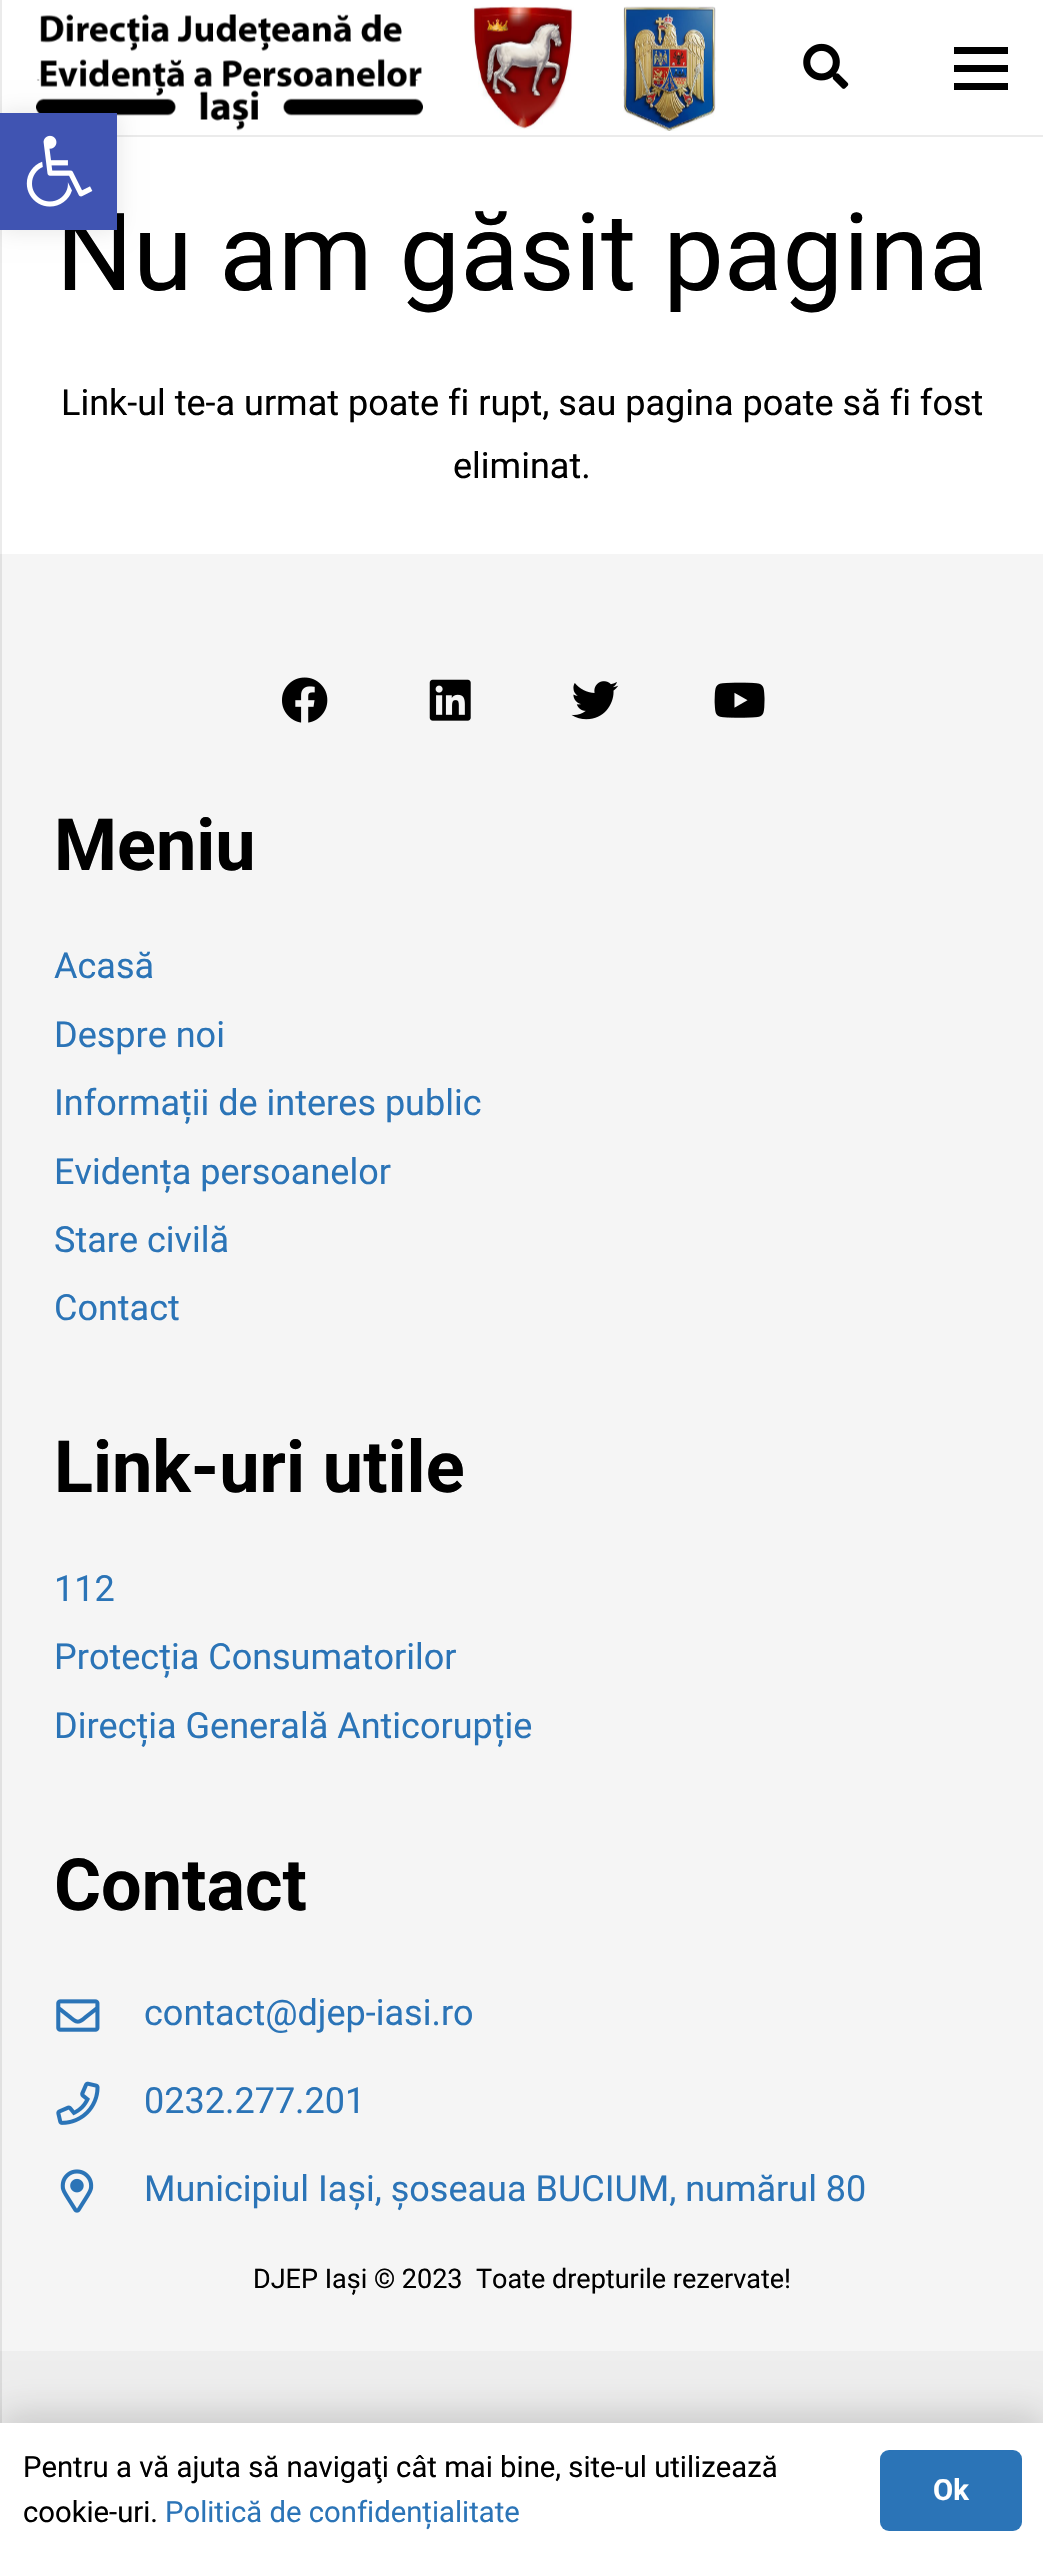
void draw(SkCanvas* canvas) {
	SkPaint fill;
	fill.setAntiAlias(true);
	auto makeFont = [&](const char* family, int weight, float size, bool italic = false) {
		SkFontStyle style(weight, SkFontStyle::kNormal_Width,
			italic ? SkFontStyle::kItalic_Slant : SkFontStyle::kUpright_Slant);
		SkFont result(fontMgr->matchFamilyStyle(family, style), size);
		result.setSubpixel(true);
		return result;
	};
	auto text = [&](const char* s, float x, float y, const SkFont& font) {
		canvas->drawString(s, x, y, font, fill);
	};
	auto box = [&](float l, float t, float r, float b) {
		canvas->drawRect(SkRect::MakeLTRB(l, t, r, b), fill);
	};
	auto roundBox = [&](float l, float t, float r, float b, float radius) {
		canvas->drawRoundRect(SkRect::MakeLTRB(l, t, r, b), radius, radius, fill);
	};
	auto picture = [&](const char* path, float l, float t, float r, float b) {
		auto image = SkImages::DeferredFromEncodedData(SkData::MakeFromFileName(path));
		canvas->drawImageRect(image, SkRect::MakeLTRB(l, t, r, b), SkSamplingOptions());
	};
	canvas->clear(0xFFEEEEEE);
	fill.setColor(0xFFDBDBDB);
	box(0, 2351, 2, 2423);
	fill.setColor(0xFFFFFFFF);
	box(2, 0, 1043, 554);
	fill.setColor(0xFFEBEBEB);
	box(0, 0, 2, 554);
	box(117, 135, 1043, 137);
	picture("image1.png", 36, 14, 423, 131);
	fill.setColor(0x1A000000);
	fill.setMaskFilter(SkMaskFilter::MakeBlur(kNormal_SkBlurStyle, 11));
	canvas->drawRect(SkRect::MakeLTRB(0, 113, 117, 230), fill);
	fill.setMaskFilter(nullptr);
	picture("image2.png", 472, 6, 574, 129);
	picture("image3.png", 623, 6, 716, 131);
	picture("image4.png", 803, 43, 849, 89);
	fill.setColor(0xFF000000);
	box(954, 65, 1008, 72);
	box(954, 47, 1008, 54);
	box(954, 83, 1008, 90);
	fill.setColor(0xFFF5F5F5);
	box(2, 554, 1043, 2351);
	fill.setColor(0xFFE1E1E1);
	box(0, 554, 2, 2351);
	picture("image5.png", 282, 677, 328, 723);
	picture("image6.png", 429, 679, 471, 721);
	picture("image7.png", 571, 681, 619, 720);
	picture("image8.png", 714, 682, 765, 718);
	picture("image9.png", 56, 1999, 100, 2032);
	picture("image10.png", 56, 2081, 100, 2125);
	picture("image11.png", 60, 2169, 94, 2213);
	fill.setColor(0x26000000);
	fill.setMaskFilter(SkMaskFilter::MakeBlur(kNormal_SkBlurStyle, 17));
	canvas->drawRect(SkRect::MakeLTRB(0, 2412, 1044, 2547), fill);
	fill.setMaskFilter(nullptr);
	fill.setColor(0xFFFFFFFF);
	box(0, 2423, 1043, 2558);
	fill.setColor(0xFF2B74B7);
	roundBox(880, 2450, 1022, 2531, 9);
	auto font1 = makeFont("Roboto", 400, 108);
	fill.setColor(0xFF000000);
	text("Nu am găsit pagina", 56, 290, font1);
	fill.setColor(0xFF4054B2);
	box(0, 113, 117, 230);
	picture("image0.png", 26, 135, 93, 207);
	auto font2 = makeFont("Roboto", 400, 36);
	fill.setColor(0xFF000000);
	text("Link-ul te-a urmat poate fi rupt, sau pagina poate să fi fost", 61, 415, font2);
	text("eliminat.", 453, 478, font2);
	auto font3 = makeFont("Roboto", 700, 72);
	text("Meniu", 54, 870, font3);
	fill.setColor(0xFF2B74B7);
	text("Acasă", 54, 978, font2);
	text("Despre noi", 54, 1047, font2);
	text("Informații de interes public", 54, 1115, font2);
	text("Evidența persoanelor", 54, 1184, font2);
	text("Stare civilă", 54, 1252, font2);
	text("Contact", 54, 1320, font2);
	fill.setColor(0xFF000000);
	text("Link-uri utile", 54, 1492, font3);
	fill.setColor(0xFF2B74B7);
	text("112", 54, 1601, font2);
	text("Protecția Consumatorilor", 54, 1669, font2);
	text("Direcția Generală Anticorupție", 54, 1738, font2);
	fill.setColor(0xFF000000);
	text("Contact", 54, 1910, font3);
	fill.setColor(0xFF2B74B7);
	text("contact@djep-iasi.ro", 144, 2025, font2);
	text("0232.277.201", 144, 2113, font2);
	text("Municipiul Iași, șoseaua BUCIUM, numărul 80", 144, 2201, font2);
	auto font4 = makeFont("Roboto", 400, 27);
	fill.setColor(0xFF000000);
	text("DJEP Iași © 2023  Toate drepturile rezervate!", 253, 2288, font4);
	auto font5 = makeFont("Roboto", 400, 29.25f);
	text("Pentru a vă ajuta să navigaţi cât mai bine, site-ul utilizează", 23, 2477, font5);
	text("cookie-uri.", 23, 2522, font5);
	fill.setColor(0xFF2B74B7);
	text("Politică de confidențialitate", 165, 2522, font5);
	auto font6 = makeFont("Roboto", 700, 29.25f);
	fill.setColor(0xFFFFFFFF);
	text("Ok", 933, 2500, font6);
}
